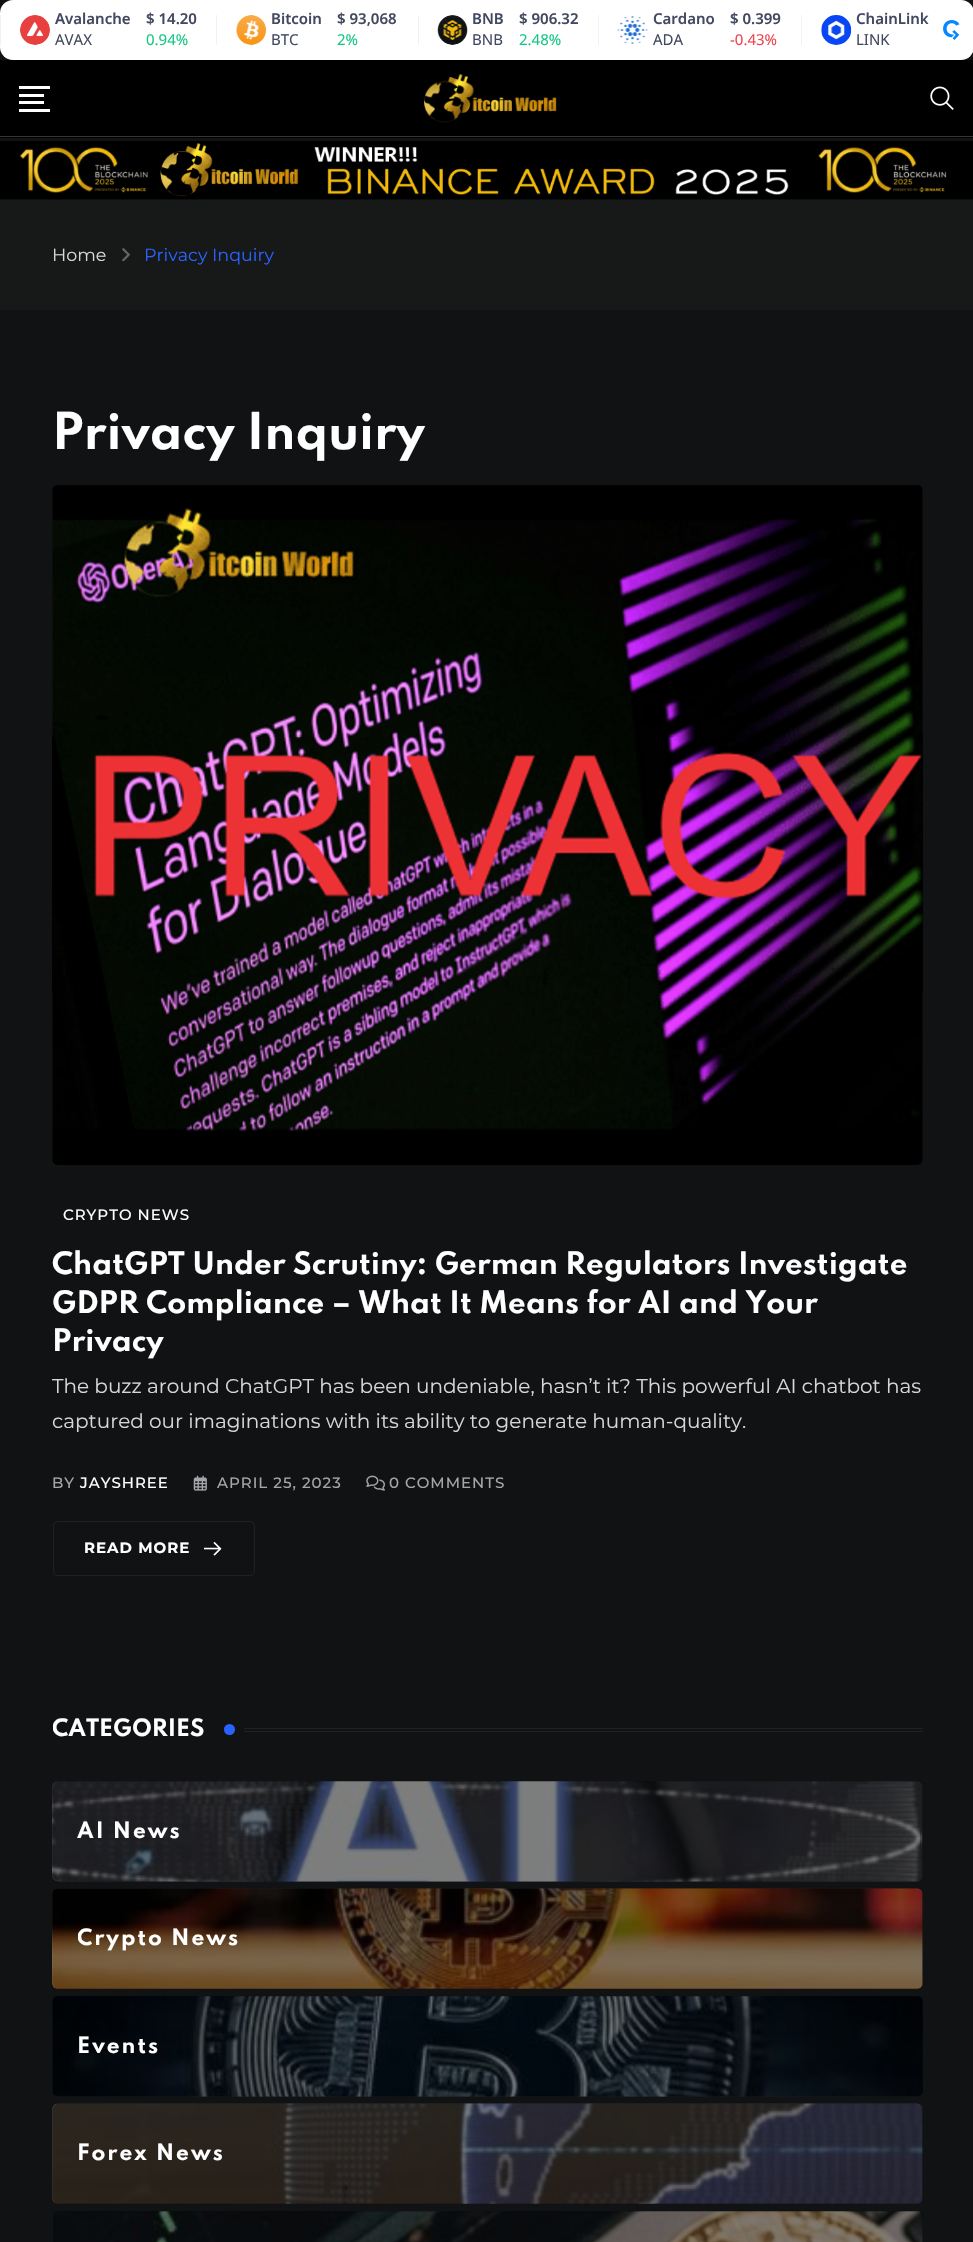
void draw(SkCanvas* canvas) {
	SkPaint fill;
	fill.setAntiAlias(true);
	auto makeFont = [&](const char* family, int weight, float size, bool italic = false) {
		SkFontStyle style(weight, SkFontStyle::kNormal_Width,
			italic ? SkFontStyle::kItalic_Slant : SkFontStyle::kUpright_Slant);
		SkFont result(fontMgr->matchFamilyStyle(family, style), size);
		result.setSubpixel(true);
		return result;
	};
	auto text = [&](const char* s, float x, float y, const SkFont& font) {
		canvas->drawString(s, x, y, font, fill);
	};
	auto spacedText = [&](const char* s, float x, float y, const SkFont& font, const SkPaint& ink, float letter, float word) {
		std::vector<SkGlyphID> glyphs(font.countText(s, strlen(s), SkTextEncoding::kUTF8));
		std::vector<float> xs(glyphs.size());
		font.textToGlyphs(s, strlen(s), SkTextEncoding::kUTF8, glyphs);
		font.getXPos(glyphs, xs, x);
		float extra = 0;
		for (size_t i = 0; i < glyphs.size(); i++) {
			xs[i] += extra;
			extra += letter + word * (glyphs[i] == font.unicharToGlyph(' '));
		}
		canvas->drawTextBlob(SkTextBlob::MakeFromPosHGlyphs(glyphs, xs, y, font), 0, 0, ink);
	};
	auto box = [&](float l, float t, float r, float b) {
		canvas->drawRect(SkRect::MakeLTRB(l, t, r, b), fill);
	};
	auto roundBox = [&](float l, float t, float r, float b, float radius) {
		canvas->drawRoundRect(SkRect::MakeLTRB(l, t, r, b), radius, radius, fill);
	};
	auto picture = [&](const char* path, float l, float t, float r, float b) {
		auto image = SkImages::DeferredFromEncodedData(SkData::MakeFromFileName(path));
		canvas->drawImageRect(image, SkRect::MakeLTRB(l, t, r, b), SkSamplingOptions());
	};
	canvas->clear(0xFF101213);
	fill.setColor(0xFFFFFFFF);
	roundBox(0, 0, 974, 60, 13);
	fill.setColor(0xFFEFF2F5);
	box(0, 15, 1, 45);
	picture("image0.png", 20, 15, 50, 45);
	box(216, 15, 217, 45);
	picture("image1.png", 236, 15, 267, 45);
	box(418, 15, 419, 45);
	picture("image2.png", 437, 15, 468, 45);
	box(598, 15, 599, 45);
	picture("image3.png", 617, 16, 648, 44);
	box(801, 15, 802, 45);
	picture("image4.png", 821, 15, 852, 45);
	picture("image5.png", 943, 20, 960, 40);
	fill.setColor(0xFF000000);
	box(0, 60, 973, 138);
	fill.setColor(0xFF363636);
	box(0, 136, 973, 137);
	fill.setColor(0xFFFFFFFF);
	box(19, 86, 50, 89);
	box(19, 94, 44, 97);
	box(19, 101, 44, 104);
	box(19, 109, 50, 112);
	picture("image6.png", 423, 73, 557, 123);
	picture("image7.png", 930, 86, 954, 110);
	picture("image8.png", 0, 141, 973, 200);
	fill.setColor(0xFF171818);
	box(0, 200, 973, 310);
	picture("image9.png", 122, 248, 130, 262);
	picture("image10.png", 52, 485, 923, 1165);
	picture("image11.png", 193, 1475, 207, 1491);
	picture("image12.png", 366, 1475, 385, 1491);
	fill.setStyle(SkPaint::kStroke_Style);
	fill.setStrokeWidth(1);
	fill.setColor(0xFF222121);
	canvas->drawRoundRect(SkRect::MakeLTRB(53.5f, 1521.5f, 254.5f, 1575.5f), 4.5f, 4.5f, fill);
	picture("image13.png", 204, 1541, 222, 1556);
	fill.setStyle(SkPaint::kFill_Style);
	fill.setColor(0xFF2962FF);
	canvas->drawCircle(229.5f, 1729.5f, 5.5f, fill);
	fill.setColor(0xFF222121);
	box(244, 1728, 923, 1729);
	box(244, 1731, 923, 1732);
	picture("image14.png", 52, 1781, 923, 1882);
	fill.setColor(0x80000000);
	roundBox(53, 1781, 923, 1881, 5);
	picture("image15.png", 52, 1888, 923, 1989);
	roundBox(53, 1889, 923, 1989, 5);
	picture("image16.png", 52, 1996, 923, 2097);
	roundBox(53, 1996, 923, 2096, 5);
	picture("image17.png", 52, 2103, 923, 2204);
	roundBox(53, 2104, 923, 2204, 5);
	picture("image18.png", 52, 2211, 923, 2242);
	roundBox(53, 2211, 923, 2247, 5);
	auto font1 = makeFont("Noto Sans", 600, 15);
	fill.setColor(0xFF424961);
	text("Avalanche", 55, 24, font1);
	auto font2 = makeFont("Noto Sans", 400, 15);
	text("AVAX", 55, 45, font2);
	text("$ 14.20", 146, 24, font1);
	fill.setColor(0xFF16C784);
	text("0.94%", 146, 45, font2);
	fill.setColor(0xFF424961);
	text("Bitcoin", 271, 24, font1);
	text("BTC", 271, 45, font2);
	text("$ 93,068", 337, 24, font1);
	fill.setColor(0xFF16C784);
	text("2%", 337, 45, font2);
	fill.setColor(0xFF424961);
	text("BNB", 472, 24, font1);
	text("BNB", 472, 45, font2);
	text("$ 906.32", 519, 24, font1);
	fill.setColor(0xFF16C784);
	text("2.48%", 519, 45, font2);
	fill.setColor(0xFF424961);
	text("Cardano", 653, 24, font1);
	text("ADA", 653, 45, font2);
	text("$ 0.399", 730, 24, font1);
	fill.setColor(0xFFEE444E);
	text("-0.43%", 730, 45, font2);
	fill.setColor(0xFF424961);
	text("ChainLink", 856, 24, font1);
	text("LINK", 856, 45, font2);
	auto font3 = makeFont("Montserrat", 400, 17.5f);
	fill.setColor(0xFFD7D7D7);
	text("Home", 52, 261, font3);
	fill.setColor(0xFF2962FF);
	text("Privacy Inquiry", 144, 261, font3);
	auto font4 = makeFont("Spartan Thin", 700, 45);
	fill.setColor(0xFFFFFFFF);
	text("Privacy Inquiry", 52, 449, font4);
	auto font5 = makeFont("Montserrat", 500, 15);
	spacedText("CRYPTO NEWS", 63, 1220, font5, fill, 1, 0);
	auto font6 = makeFont("Spartan Thin", 700, 27.5f);
	text("ChatGPT Under Scrutiny: German Regulators Investigate", 52, 1274, font6);
	text("GDPR Compliance – What It Means for AI and Your", 52, 1313, font6);
	text("Privacy", 52, 1351, font6);
	auto font7 = makeFont("Montserrat", 400, 20);
	fill.setColor(0xFFD7D7D7);
	text("The buzz around ChatGPT has been undeniable, hasn’t it? This powerful AI chatbot has", 52, 1393, font7);
	text("captured our imaginations with its ability to generate human-quality.", 52, 1428, font7);
	fill.setColor(0xFFA5A6AA);
	spacedText("BY", 52, 1488, font5, fill, 1, 0);
	fill.setColor(0xFFFFFFFF);
	spacedText("JAYSHREE", 80, 1488, font5, fill, 1, 0);
	fill.setColor(0xFFA5A6AA);
	spacedText("APRIL 25, 2023", 217, 1488, font5, fill, 1, 0);
	spacedText("0 COMMENTS", 389, 1488, font5, fill, 1, 0);
	auto font8 = makeFont("Montserrat", 700, 15);
	fill.setColor(0xFFFFFFFF);
	spacedText("READ MORE", 84, 1553, font8, fill, 1, 0);
	canvas->save();
	canvas->clipRect(SkRect::MakeLTRB(53, 1715, 923, 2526));
	auto font9 = makeFont("Spartan Thin", 700, 21.25f);
	text("CATEGORIES", 52, 1736, font9);
	canvas->restore();
	auto font10 = makeFont("Spartan Thin", 700, 20);
	spacedText("AI News", 77, 1838, font10, fill, 2, 0);
	canvas->save();
	canvas->clipRect(SkRect::MakeLTRB(78, 1925, 240, 1954));
	spacedText("Crypto News", 77, 1945, font10, fill, 2, 0);
	canvas->restore();
	spacedText("Events", 77, 2053, font10, fill, 2, 0);
	spacedText("Forex News", 77, 2160, font10, fill, 2, 0);
}
